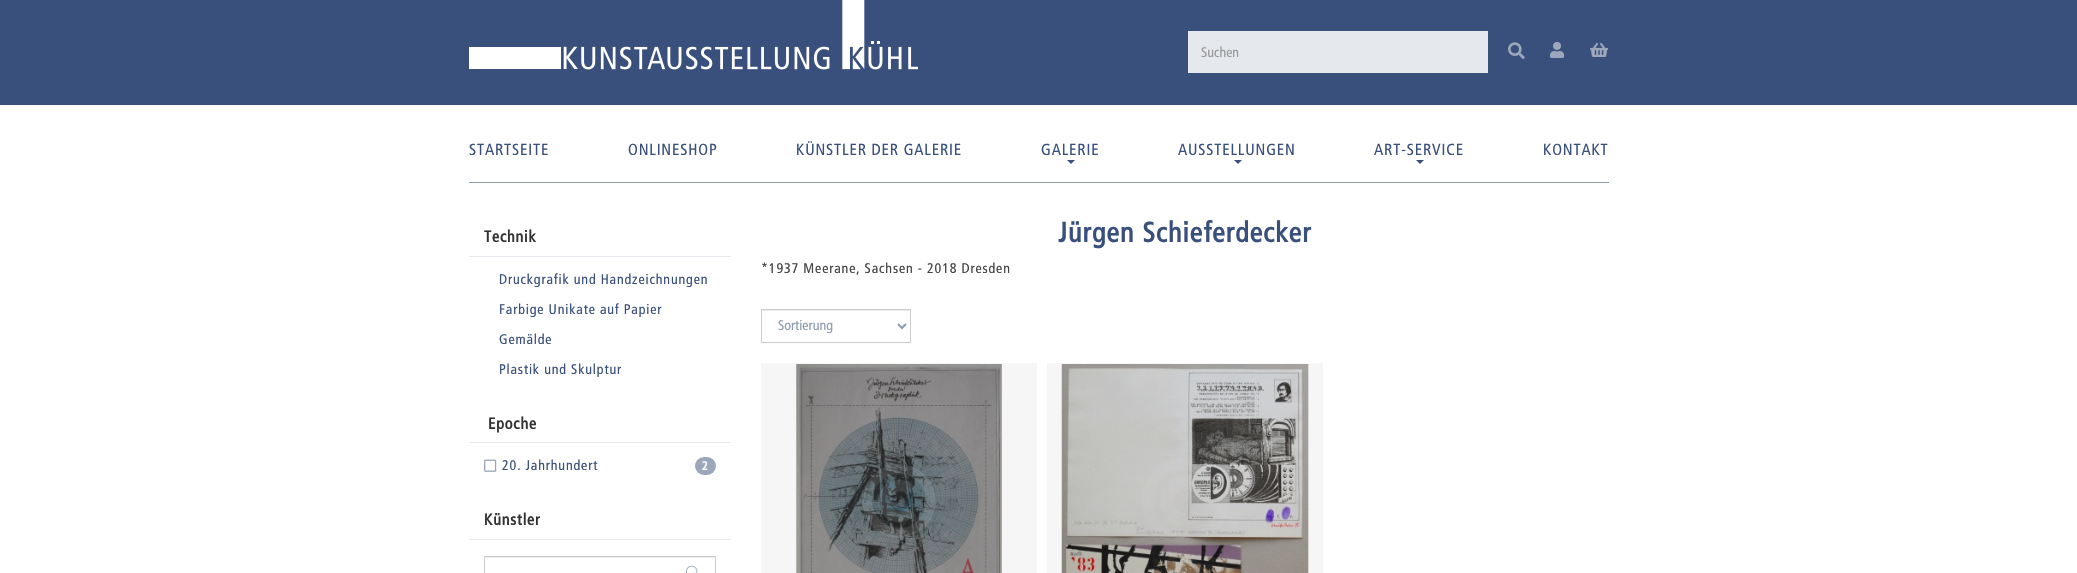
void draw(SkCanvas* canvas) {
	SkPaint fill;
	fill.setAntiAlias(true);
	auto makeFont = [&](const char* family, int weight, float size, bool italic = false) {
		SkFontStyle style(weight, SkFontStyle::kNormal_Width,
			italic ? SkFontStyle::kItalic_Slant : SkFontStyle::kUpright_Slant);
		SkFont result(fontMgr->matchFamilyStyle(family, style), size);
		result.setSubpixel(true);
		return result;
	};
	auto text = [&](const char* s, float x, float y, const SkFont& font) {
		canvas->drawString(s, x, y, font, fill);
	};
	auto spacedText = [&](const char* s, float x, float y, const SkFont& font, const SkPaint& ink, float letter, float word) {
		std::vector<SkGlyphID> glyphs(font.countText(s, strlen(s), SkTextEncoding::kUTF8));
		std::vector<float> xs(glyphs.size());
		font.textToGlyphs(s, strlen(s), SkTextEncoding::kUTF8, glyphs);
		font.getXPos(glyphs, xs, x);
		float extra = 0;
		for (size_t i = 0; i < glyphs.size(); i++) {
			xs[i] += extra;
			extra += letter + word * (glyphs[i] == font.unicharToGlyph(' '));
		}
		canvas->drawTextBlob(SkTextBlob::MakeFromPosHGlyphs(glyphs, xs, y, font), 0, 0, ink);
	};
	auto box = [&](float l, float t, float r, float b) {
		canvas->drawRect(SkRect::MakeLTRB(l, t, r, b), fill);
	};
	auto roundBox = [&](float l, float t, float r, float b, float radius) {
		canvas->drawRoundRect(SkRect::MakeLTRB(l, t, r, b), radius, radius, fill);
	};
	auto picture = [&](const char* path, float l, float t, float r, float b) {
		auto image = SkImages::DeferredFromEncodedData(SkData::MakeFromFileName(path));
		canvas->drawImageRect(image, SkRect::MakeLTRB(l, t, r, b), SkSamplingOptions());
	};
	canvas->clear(0xFFFFFFFF);
	fill.setColor(0xFF3A507C);
	box(0, 0, 2077, 105);
	picture("image0.png", 469, 0, 918, 70);
	fill.setColor(0xFFE5E8ED);
	box(1188, 31, 1488, 73);
	picture("image1.png", 1508, 42, 1525, 59);
	picture("image2.png", 1550, 42, 1565, 58);
	picture("image3.png", 1590, 43, 1609, 57);
	fill.setColor(0xFF8F9BB2);
	box(469, 182, 1609, 183);
	fill.setColor(0xFF3A507C);
	canvas->drawPath(SkPathBuilder().moveTo(1067, 160).lineTo(1075, 160).lineTo(1071, 164).close().detach(), fill);
	canvas->drawPath(SkPathBuilder().moveTo(1234, 160).lineTo(1242, 160).lineTo(1238, 164).close().detach(), fill);
	canvas->drawPath(SkPathBuilder().moveTo(1416, 160).lineTo(1424, 160).lineTo(1420, 164).close().detach(), fill);
	fill.setColor(0xFFE5E8ED);
	box(469, 256, 731, 257);
	box(469, 442, 731, 443);
	picture("image4.png", 484, 459, 497, 472);
	fill.setColor(0xFF9CA7BB);
	roundBox(695, 457, 716, 475, 9);
	fill.setColor(0xFFE5E8ED);
	box(469, 539, 731, 540);
	fill.setColor(0xFFECECEC);
	box(485, 557, 715, 558);
	fill.setStyle(SkPaint::kStroke_Style);
	fill.setStrokeWidth(1);
	fill.setColor(0xFFCCCCCC);
	canvas->drawRect(SkRect::MakeLTRB(484.5f, 556.5f, 715.5f, 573.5f), fill);
	picture("image5.png", 686, 565, 698, 573);
	fill.setStyle(SkPaint::kFill_Style);
	fill.setColor(0xFFECECEC);
	box(762, 310, 910, 311);
	fill.setStyle(SkPaint::kStroke_Style);
	fill.setColor(0xFFCCCCCC);
	canvas->drawRect(SkRect::MakeLTRB(761.5f, 309.5f, 910.5f, 342.5f), fill);
	fill.setStrokeWidth(2);
	fill.setColor(0xFF8F9BB2);
	canvas->drawPath(SkPathBuilder().moveTo(898, 324).lineTo(902, 328).lineTo(906, 324).detach(), fill);
	fill.setStyle(SkPaint::kFill_Style);
	fill.setColor(0xFFF6F6F6);
	box(761, 363, 1037, 573);
	picture("image6.png", 796, 364, 1002, 573);
	box(1047, 363, 1323, 573);
	picture("image7.png", 1061, 364, 1309, 573);
	auto font1 = makeFont("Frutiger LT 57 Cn", 400, 14);
	fill.setColor(0xFF999999);
	text("Suchen", 1201, 57, font1);
	auto font2 = makeFont("Frutiger LT 57 Cn", 400, 16);
	fill.setColor(0xFF3A507C);
	spacedText("STARTSEITE", 469, 155, font2, fill, 0.85f, 0);
	spacedText("ONLINESHOP", 628, 155, font2, fill, 0.85f, 0);
	spacedText("KÜNSTLER DER GALERIE", 796, 155, font2, fill, 0.85f, 0);
	spacedText("GALERIE", 1041, 155, font2, fill, 0.85f, 0);
	spacedText("AUSSTELLUNGEN", 1178, 155, font2, fill, 0.85f, 0);
	spacedText("ART-SERVICE", 1374, 155, font2, fill, 0.85f, 0);
	spacedText("KONTAKT", 1543, 155, font2, fill, 0.85f, 0);
	auto font3 = makeFont("Frutiger LT 57 Cn", 700, 16);
	fill.setColor(0xFF333333);
	spacedText("Technik", 484, 242, font3, fill, 0.85f, 0);
	fill.setColor(0xFF3A507C);
	spacedText("Druckgrafik und Handzeichnungen", 499, 284, font1, fill, 0.85f, 0);
	spacedText("Farbige Unikate auf Papier", 499, 314, font1, fill, 0.85f, 0);
	spacedText("Gemälde", 499, 344, font1, fill, 0.85f, 0);
	spacedText("Plastik und Skulptur", 499, 374, font1, fill, 0.85f, 0);
	fill.setColor(0xFF333333);
	spacedText("Epoche", 488, 429, font3, fill, 0.85f, 0);
	fill.setColor(0xFF3A507C);
	spacedText("20. Jahrhundert", 502, 470, font1, fill, 0.85f, 0);
	auto font4 = makeFont("Frutiger LT 57 Cn", 700, 12);
	fill.setColor(0xFFFFFFFF);
	spacedText("2", 702, 470, font4, fill, 0.85f, 0);
	fill.setColor(0xFF333333);
	spacedText("Künstler", 484, 525, font3, fill, 0.85f, 0);
	auto font5 = makeFont("Frutiger LT 57 Cn", 700, 28);
	fill.setColor(0xFF3A507C);
	spacedText("Jürgen Schieferdecker", 1058, 242, font5, fill, 1.1f, 0);
	fill.setColor(0xFF444444);
	spacedText("*1937 Meerane, Sachsen - 2018 Dresden", 761, 273, font1, fill, 0.85f, 0);
	fill.setColor(0xFF8F9BB2);
	text("Sortierung", 778, 330, font1);
}
